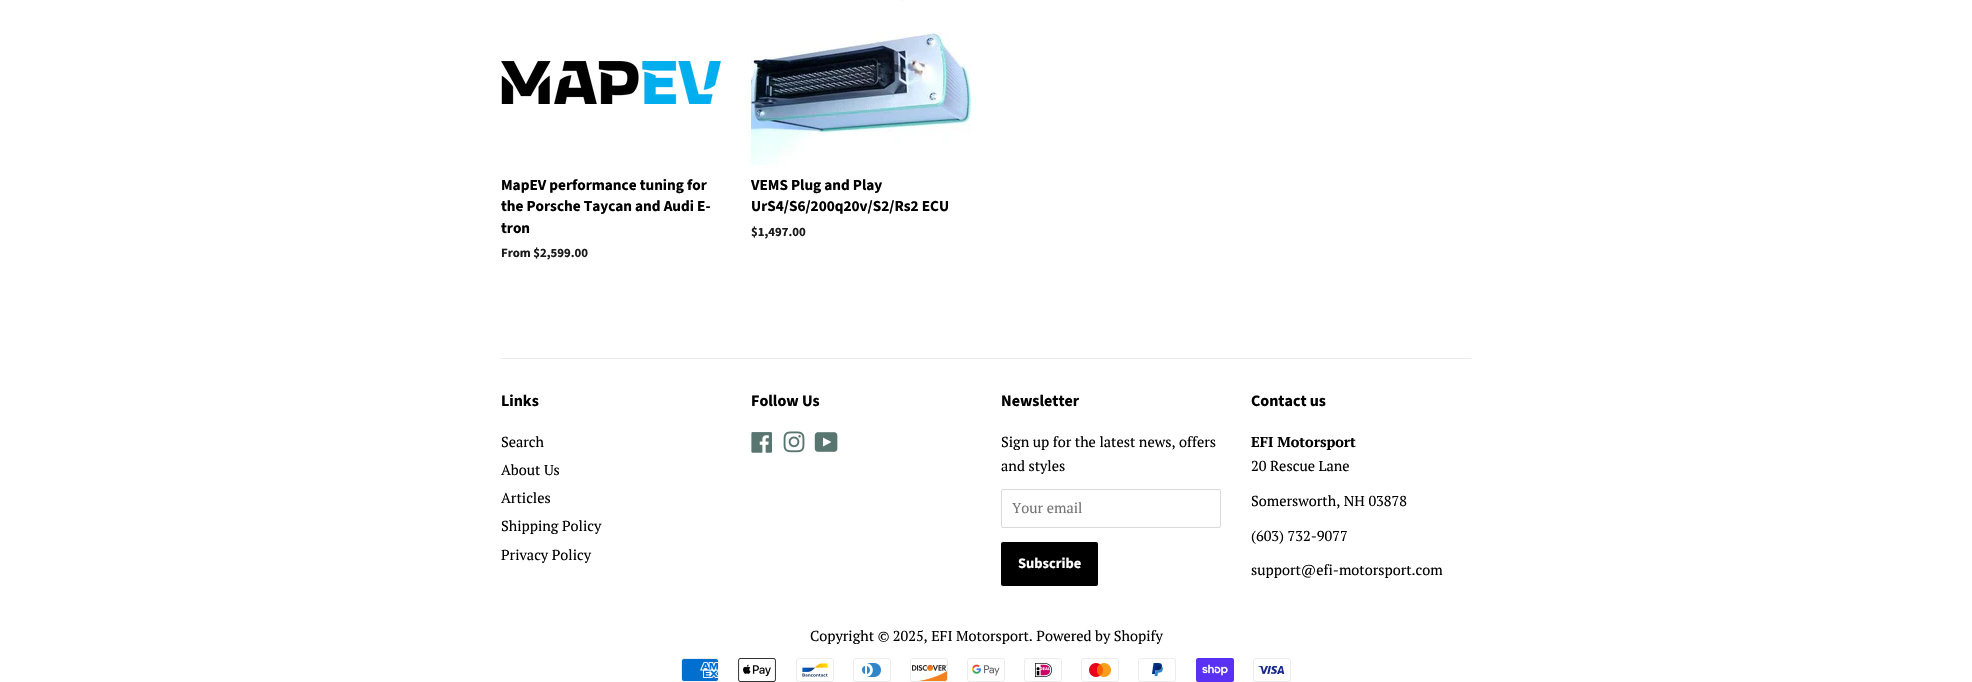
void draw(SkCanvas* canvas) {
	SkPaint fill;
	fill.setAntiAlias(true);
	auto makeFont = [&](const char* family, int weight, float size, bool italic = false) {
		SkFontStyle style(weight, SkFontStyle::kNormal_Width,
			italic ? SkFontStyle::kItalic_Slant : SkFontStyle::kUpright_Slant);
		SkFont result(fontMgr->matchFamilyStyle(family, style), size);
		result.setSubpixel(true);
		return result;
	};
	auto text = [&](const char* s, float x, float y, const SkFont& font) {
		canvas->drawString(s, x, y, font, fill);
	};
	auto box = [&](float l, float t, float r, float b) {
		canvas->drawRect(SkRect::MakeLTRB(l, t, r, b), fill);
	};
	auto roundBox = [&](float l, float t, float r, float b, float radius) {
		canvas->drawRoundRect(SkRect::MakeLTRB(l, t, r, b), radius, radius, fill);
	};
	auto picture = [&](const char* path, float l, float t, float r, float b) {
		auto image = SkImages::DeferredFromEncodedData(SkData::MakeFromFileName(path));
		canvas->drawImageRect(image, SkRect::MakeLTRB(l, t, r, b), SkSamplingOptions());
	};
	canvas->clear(0xFFFFFFFF);
	picture("image0.png", 501, 61, 721, 104);
	picture("image1.png", 751, 0, 971, 165);
	fill.setColor(0xFFEBEBEB);
	box(501, 358, 1471, 359);
	picture("image2.png", 751, 432, 772, 453);
	picture("image3.png", 783, 431, 805, 453);
	picture("image4.png", 814, 432, 838, 452);
	fill.setStyle(SkPaint::kStroke_Style);
	fill.setStrokeWidth(1);
	fill.setColor(0xFFD9D9D9);
	canvas->drawRoundRect(SkRect::MakeLTRB(1001.5f, 489.5f, 1220.5f, 527.5f), 1.5f, 1.5f, fill);
	fill.setStyle(SkPaint::kFill_Style);
	fill.setColor(0xFF000000);
	roundBox(1001, 542, 1098, 586, 2);
	picture("image5.png", 681, 658, 719, 682);
	picture("image6.png", 738, 658, 776, 682);
	picture("image7.png", 796, 658, 834, 682);
	picture("image8.png", 853, 658, 891, 682);
	picture("image9.png", 910, 658, 948, 682);
	picture("image10.png", 967, 658, 1005, 682);
	picture("image11.png", 1024, 658, 1062, 682);
	picture("image12.png", 1081, 658, 1119, 682);
	picture("image13.png", 1138, 658, 1176, 682);
	picture("image14.png", 1196, 658, 1234, 682);
	picture("image15.png", 1253, 658, 1291, 682);
	auto font1 = makeFont("Source Sans Pro", 700, 15.25f);
	text("MapEV performance tuning for", 501, 190, font1);
	text("the Porsche Taycan and Audi E-", 501, 211, font1);
	text("tron", 501, 233, font1);
	auto font2 = makeFont("Source Sans Pro", 700, 12.75f);
	fill.setColor(0xFF1A1A1A);
	text("From $2,599.00", 501, 257, font2);
	fill.setColor(0xFF000000);
	text("VEMS Plug and Play", 751, 190, font1);
	text("UrS4/S6/200q20v/S2/Rs2 ECU", 751, 211, font1);
	fill.setColor(0xFF1A1A1A);
	text("$1,497.00", 751, 236, font2);
	auto font3 = makeFont("Source Sans Pro", 700, 16);
	fill.setColor(0xFF000000);
	text("Links", 501, 406, font3);
	auto font4 = makeFont("PT Serif", 400, 14.45f);
	text("Search", 501, 447, font4);
	text("About Us", 501, 475, font4);
	text("Articles", 501, 503, font4);
	text("Shipping Policy", 501, 531, font4);
	text("Privacy Policy", 501, 560, font4);
	text("Follow Us", 751, 406, font3);
	text("Newsletter", 1001, 406, font3);
	text("Sign up for the latest news, offers", 1001, 447, font4);
	text("and styles", 1001, 471, font4);
	fill.setColor(0xFF757575);
	text("Your email", 1012, 513, font4);
	auto font5 = makeFont("Source Sans Pro", 700, 14.45f);
	fill.setColor(0xFFFFFFFF);
	text("Subscribe", 1018, 568, font5);
	fill.setColor(0xFF000000);
	text("Contact us", 1251, 406, font3);
	auto font6 = makeFont("PT Serif", 700, 14.45f);
	text("EFI Motorsport", 1251, 447, font6);
	text("20 Rescue Lane", 1251, 471, font4);
	text("Somersworth, NH 03878", 1251, 506, font4);
	text("(603) 732-9077", 1251, 541, font4);
	text("support@efi-motorsport.com", 1251, 575, font4);
	text("Copyright © 2025, EFI Motorsport. Powered by Shopify", 810, 641, font4);
}
